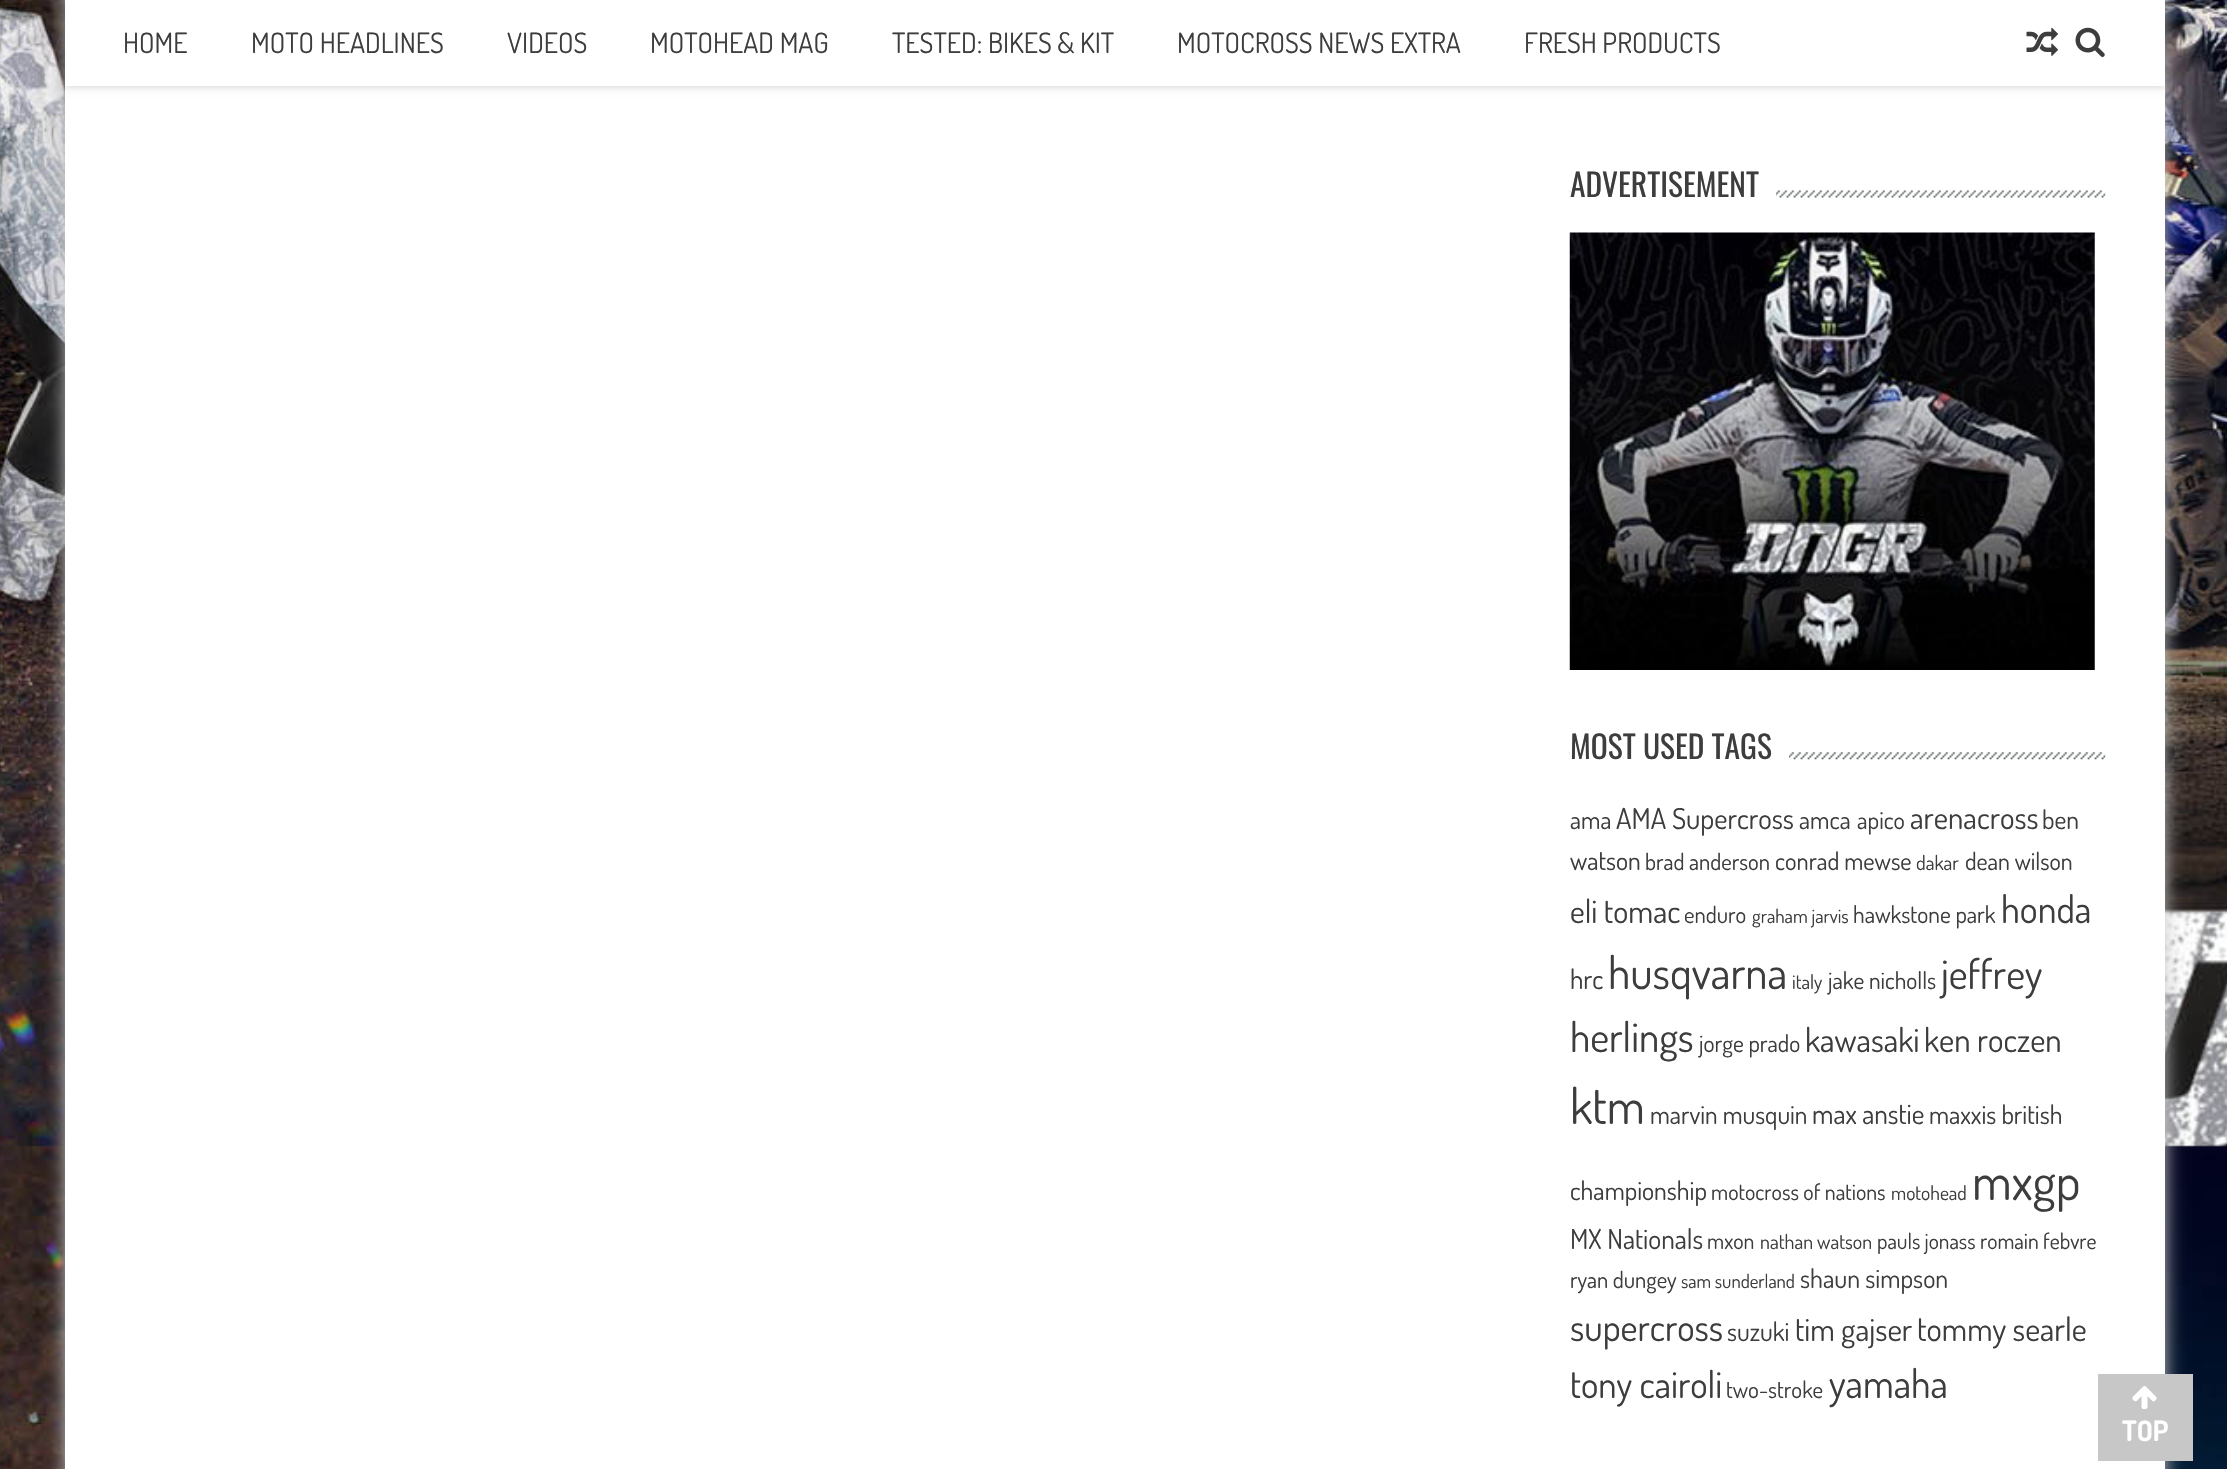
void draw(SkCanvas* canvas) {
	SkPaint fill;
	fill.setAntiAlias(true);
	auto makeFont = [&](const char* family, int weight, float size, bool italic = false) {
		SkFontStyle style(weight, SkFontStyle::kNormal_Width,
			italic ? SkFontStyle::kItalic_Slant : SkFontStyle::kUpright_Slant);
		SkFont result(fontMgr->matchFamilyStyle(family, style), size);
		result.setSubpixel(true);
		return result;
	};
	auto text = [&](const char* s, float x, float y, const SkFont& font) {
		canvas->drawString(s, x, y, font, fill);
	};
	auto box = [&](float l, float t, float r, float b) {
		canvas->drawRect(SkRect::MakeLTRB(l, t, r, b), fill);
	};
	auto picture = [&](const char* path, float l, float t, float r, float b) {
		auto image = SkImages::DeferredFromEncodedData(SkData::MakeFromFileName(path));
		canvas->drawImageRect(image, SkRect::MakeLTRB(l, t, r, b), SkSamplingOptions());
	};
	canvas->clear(0xFFFFFFFF);
	picture("image0.png", 0, 0, 2227, 1469);
	fill.setColor(0xFFC7C7C7);
	fill.setMaskFilter(SkMaskFilter::MakeBlur(kNormal_SkBlurStyle, 9));
	canvas->drawRect(SkRect::MakeLTRB(65, -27, 2165, 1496), fill);
	fill.setMaskFilter(nullptr);
	fill.setColor(0xFFFFFFFF);
	box(65, 86, 2165, 1469);
	fill.setColor(0x33000000);
	fill.setMaskFilter(SkMaskFilter::MakeBlur(kNormal_SkBlurStyle, 4.5f));
	canvas->drawRect(SkRect::MakeLTRB(65, 0, 2165, 86), fill);
	fill.setMaskFilter(nullptr);
	fill.setColor(0xFFFFFFFF);
	box(65, 0, 2165, 86);
	picture("image1.png", 2026, 27, 2058, 56);
	picture("image2.png", 2075, 27, 2105, 57);
	picture("image3.png", 1569, 190, 2106, 198);
	box(1570, 190, 1776, 198);
	picture("image4.png", 1569, 232, 2095, 670);
	picture("image5.png", 1569, 752, 2106, 760);
	box(1570, 752, 1789, 760);
	fill.setColor(0xFFC7C7C7);
	box(2098, 1374, 2193, 1461);
	picture("image6.png", 2132, 1386, 2157, 1409);
	auto font1 = makeFont("Dosis", 400, 28);
	fill.setColor(0xFF3D3D3D);
	text("HOME", 123, 53, font1);
	text("MOTO HEADLINES", 251, 53, font1);
	text("VIDEOS", 507, 53, font1);
	text("MOTOHEAD MAG", 650, 53, font1);
	text("TESTED: BIKES & KIT", 892, 53, font1);
	text("MOTOCROSS NEWS EXTRA", 1177, 53, font1);
	text("FRESH PRODUCTS", 1524, 53, font1);
	auto font2 = makeFont("Oswald", 400, 31.5f);
	text("ADVERTISEMENT", 1570, 197, font2);
	text("MOST USED TAGS", 1570, 759, font2);
	auto font3 = makeFont("Dosis", 400, 25);
	text("ama", 1570, 829, font3);
	auto font4 = makeFont("Dosis", 400, 28.75f);
	text("AMA Supercross", 1616, 829, font4);
	text("amca", 1799, 829, font3);
	auto font5 = makeFont("Dosis", 400, 24);
	text("apico", 1857, 829, font5);
	auto font6 = makeFont("Dosis", 400, 31);
	text("arenacross", 1910, 829, font6);
	auto font7 = makeFont("Dosis", 400, 25.75f);
	text("ben", 2042, 829, font7);
	text("watson", 1570, 870, font7);
	auto font8 = makeFont("Dosis", 400, 22.75f);
	text("brad anderson", 1645, 870, font8);
	auto font9 = makeFont("Dosis", 400, 24.5f);
	text("conrad mewse", 1775, 870, font9);
	auto font10 = makeFont("Dosis", 400, 20);
	text("dakar", 1916, 870, font10);
	text("dean wilson", 1965, 870, font5);
	auto font11 = makeFont("Dosis", 400, 32);
	text("eli tomac", 1570, 923, font11);
	text("enduro", 1684, 923, font8);
	auto font12 = makeFont("Dosis", 400, 19);
	text("graham jarvis", 1752, 923, font12);
	auto font13 = makeFont("Dosis", 400, 23.5f);
	text("hawkstone park", 1853, 923, font13);
	auto font14 = makeFont("Dosis", 400, 38);
	text("honda", 2001, 923, font14);
	auto font15 = makeFont("Dosis", 400, 27);
	text("hrc", 1570, 989, font15);
	auto font16 = makeFont("Dosis", 400, 45);
	text("husqvarna", 1608, 989, font16);
	auto font17 = makeFont("Dosis", 400, 19.5f);
	text("italy", 1792, 989, font17);
	text("jake nicholls", 1828, 989, font13);
	auto font18 = makeFont("Dosis", 400, 41);
	text("jeffrey", 1941, 989, font18);
	text("herlings", 1570, 1052, font18);
	text("jorge prado", 1699, 1052, font13);
	auto font19 = makeFont("Dosis", 400, 33);
	text("kawasaki", 1805, 1052, font19);
	text("ken roczen", 1924, 1052, font19);
	auto font20 = makeFont("Dosis", 400, 49);
	text("ktm", 1570, 1124, font20);
	auto font21 = makeFont("Dosis", 400, 25.5f);
	text("marvin musquin", 1650, 1124, font21);
	auto font22 = makeFont("Dosis", 400, 27.5f);
	text("max anstie", 1812, 1124, font22);
	text("maxxis british", 1929, 1124, font7);
	text("championship", 1570, 1200, font7);
	auto font23 = makeFont("Dosis", 400, 22);
	text("motocross of nations", 1711, 1200, font23);
	text("motohead", 1891, 1200, font17);
	auto font24 = makeFont("Dosis", 400, 51);
	text("mxgp", 1972, 1200, font24);
	text("MX Nationals", 1570, 1249, font22);
	text("mxon", 1707, 1249, font23);
	text("nathan watson", 1760, 1249, font10);
	auto font25 = makeFont("Dosis", 400, 21.5f);
	text("pauls jonass", 1877, 1249, font25);
	auto font26 = makeFont("Dosis", 400, 21.75f);
	text("romain febvre", 1980, 1249, font26);
	text("ryan dungey", 1570, 1288, font8);
	auto font27 = makeFont("Dosis", 400, 18.75f);
	text("sam sunderland", 1681, 1288, font27);
	auto font28 = makeFont("Dosis", 400, 26);
	text("shaun simpson", 1800, 1288, font28);
	auto font29 = makeFont("Dosis", 400, 37);
	text("supercross", 1570, 1341, font29);
	text("suzuki", 1727, 1341, font7);
	auto font30 = makeFont("Dosis", 400, 31.5f);
	text("tim gajser", 1795, 1341, font30);
	auto font31 = makeFont("Dosis", 400, 32.5f);
	text("tommy searle", 1917, 1341, font31);
	text("tony cairoli", 1570, 1398, font29);
	auto font32 = makeFont("Dosis", 400, 23);
	text("two-stroke", 1726, 1398, font32);
	auto font33 = makeFont("Dosis", 400, 39.5f);
	text("yamaha", 1829, 1398, font33);
	auto font34 = makeFont("Dosis", 700, 28);
	fill.setColor(0xFFFFFFFF);
	text("TOP", 2122, 1441, font34);
}
